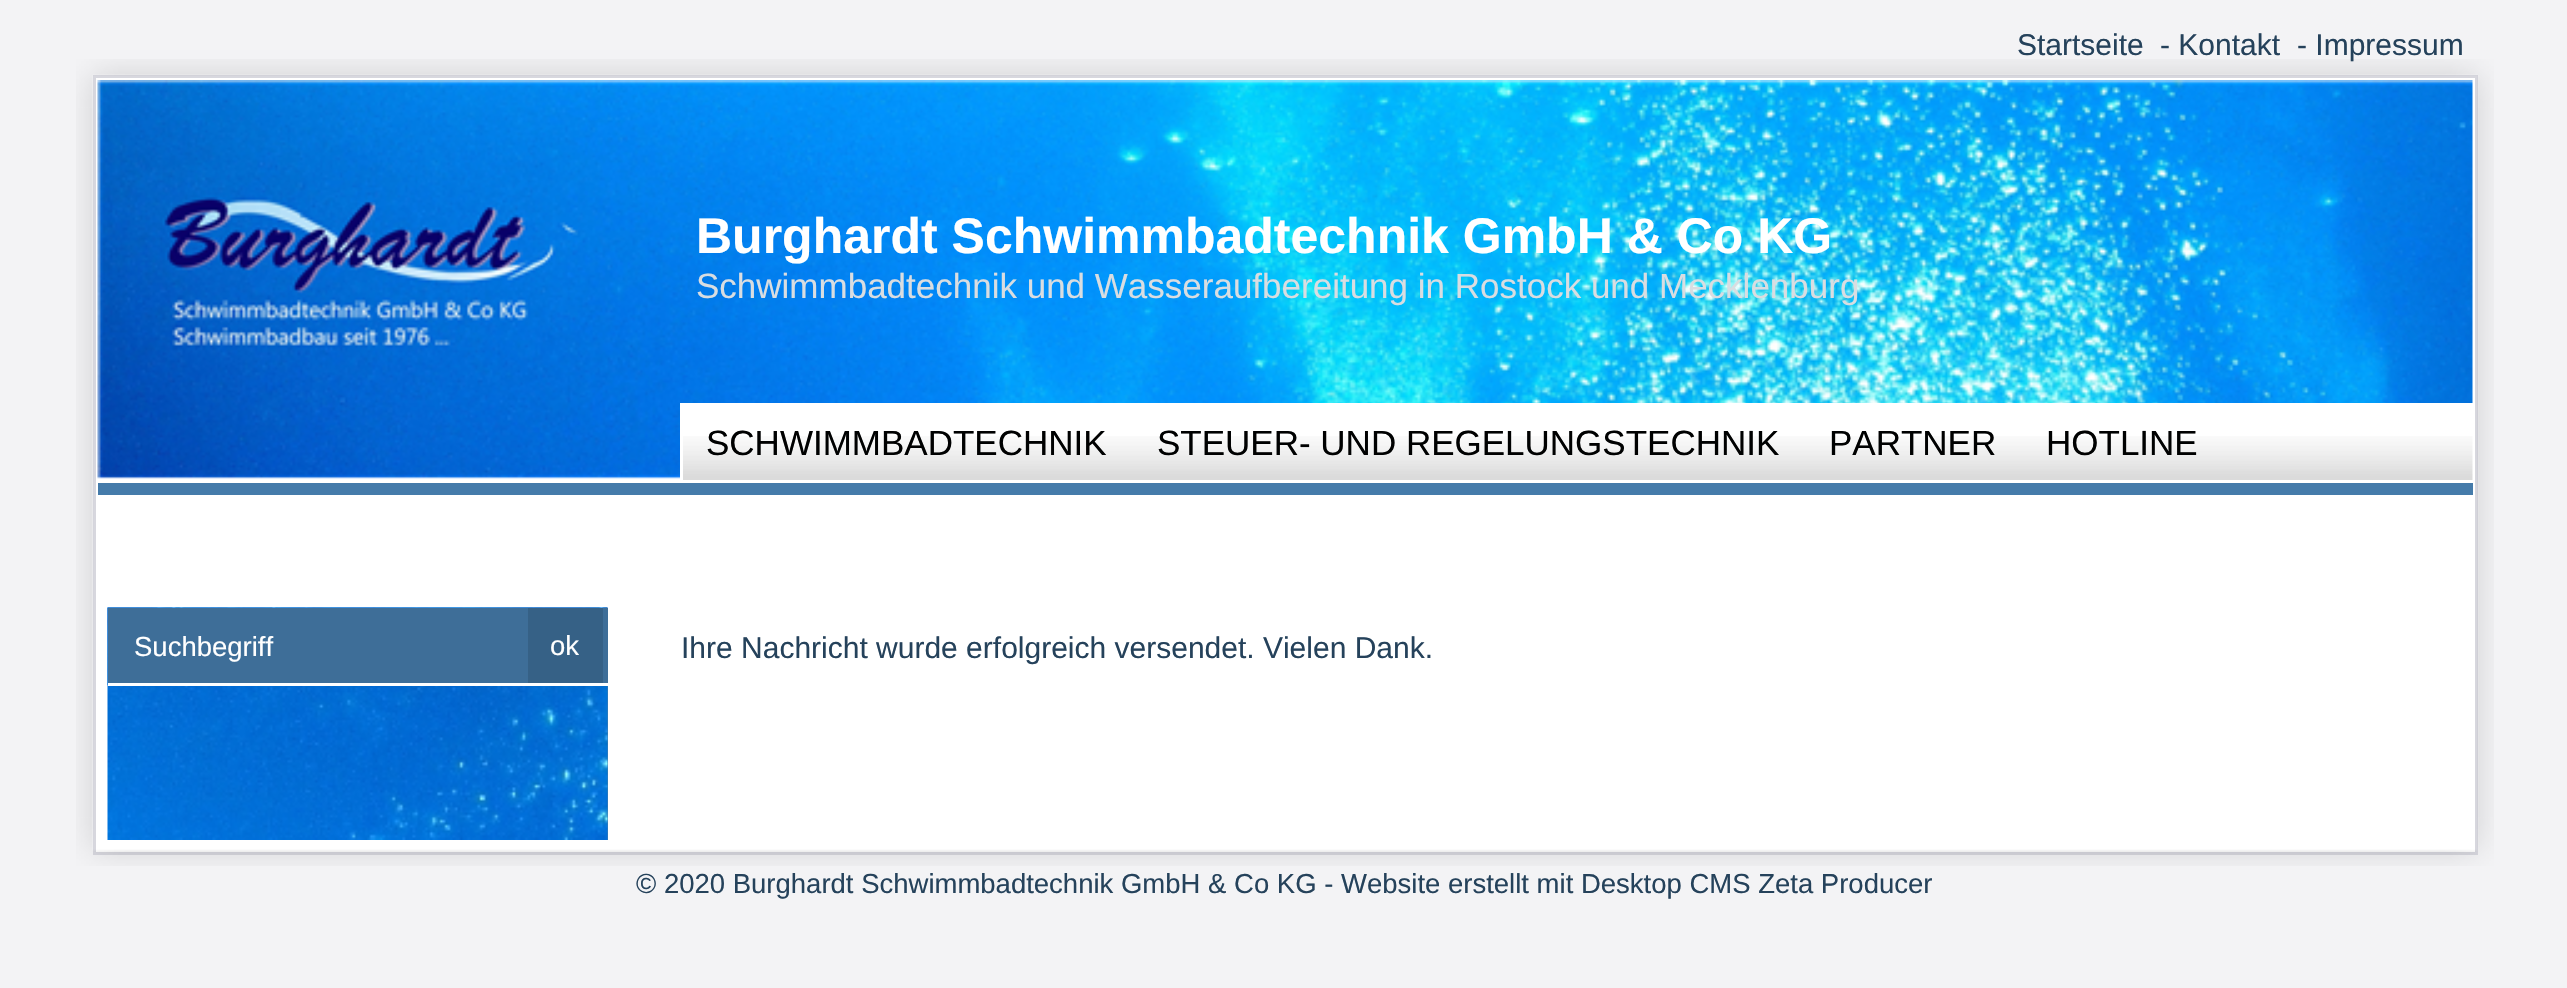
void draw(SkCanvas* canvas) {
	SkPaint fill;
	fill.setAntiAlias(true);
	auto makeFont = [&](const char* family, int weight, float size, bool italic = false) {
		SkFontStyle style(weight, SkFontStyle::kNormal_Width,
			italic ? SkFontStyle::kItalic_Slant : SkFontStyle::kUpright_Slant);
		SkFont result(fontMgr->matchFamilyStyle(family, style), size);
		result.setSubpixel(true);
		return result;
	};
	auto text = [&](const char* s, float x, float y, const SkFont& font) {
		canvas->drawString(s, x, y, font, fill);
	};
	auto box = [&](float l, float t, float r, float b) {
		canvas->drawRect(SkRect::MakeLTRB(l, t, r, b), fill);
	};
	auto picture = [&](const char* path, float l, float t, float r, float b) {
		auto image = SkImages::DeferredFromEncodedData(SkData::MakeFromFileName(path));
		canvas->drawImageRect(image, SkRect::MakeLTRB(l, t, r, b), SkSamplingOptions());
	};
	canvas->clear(0xFFF3F3F5);
	fill.setColor(0xFFFFFFFF);
	canvas->drawRect(SkRect::MakeLTRB(94.5f, 76.5f, 2476.5f, 853.5f), fill);
	fill.setStyle(SkPaint::kStroke_Style);
	fill.setStrokeWidth(3);
	fill.setColor(0xFFD7D7DE);
	canvas->drawRect(SkRect::MakeLTRB(94.5f, 76.5f, 2476.5f, 853.5f), fill);
	picture("image0.png", 76, 59, 2494, 108);
	picture("image1.png", 76, 107, 2494, 818);
	picture("image2.png", 76, 817, 2494, 866);
	picture("image3.png", 97, 80, 2473, 479);
	fill.setStyle(SkPaint::kFill_Style);
	fill.setColor(0xFF457BAA);
	box(98, 483, 2473, 495);
	fill.setColor(0xFFFFFFFF);
	box(683, 403, 2473, 479);
	picture("image4.png", 683, 436, 2473, 480);
	box(680, 403, 683, 480);
	fill.setColor(0xFF457BAA);
	box(607, 686, 608, 840);
	picture("image5.png", 107, 607, 608, 840);
	picture("image6.png", 107, 607, 608, 685);
	fill.setColor(0xFF3E6E98);
	box(108, 608, 608, 683);
	fill.setColor(0xFFFFFFFF);
	box(108, 683, 608, 686);
	fill.setColor(0xFF366186);
	box(528, 608, 603, 683);
	auto font1 = makeFont("Liberation Sans", 400, 30);
	fill.setColor(0xFF25425B);
	text("Startseite", 2017, 55, font1);
	text("- Kontakt", 2160, 55, font1);
	text("- Impressum", 2297, 55, font1);
	auto font2 = makeFont("Liberation Sans", 700, 50);
	fill.setColor(0xFFFFFFFF);
	text("Burghardt Schwimmbadtechnik GmbH & Co KG", 696, 253, font2);
	auto font3 = makeFont("Liberation Sans", 400, 35);
	fill.setColor(0xFFD9DDE1);
	text("Schwimmbadtechnik und Wasseraufbereitung in Rostock und Mecklenburg", 696, 298, font3);
	fill.setColor(0xFF000101);
	text("SCHWIMMBADTECHNIK", 706, 455, font3);
	text("STEUER- UND REGELUNGSTECHNIK", 1157, 455, font3);
	text("PARTNER", 1829, 455, font3);
	text("HOTLINE", 2046, 455, font3);
	auto font4 = makeFont("Liberation Sans", 400, 27.5f);
	fill.setColor(0xFFFFFFFF);
	text("Suchbegriff", 134, 656, font4);
	text("ok", 550, 655, font4);
	fill.setColor(0xFF25425B);
	text("Ihre Nachricht wurde erfolgreich versendet. Vielen Dank.", 681, 658, font1);
	text("© 2020 Burghardt Schwimmbadtechnik GmbH & Co KG - Website erstellt mit Desktop CMS Zeta Producer", 636, 893, font4);
}
